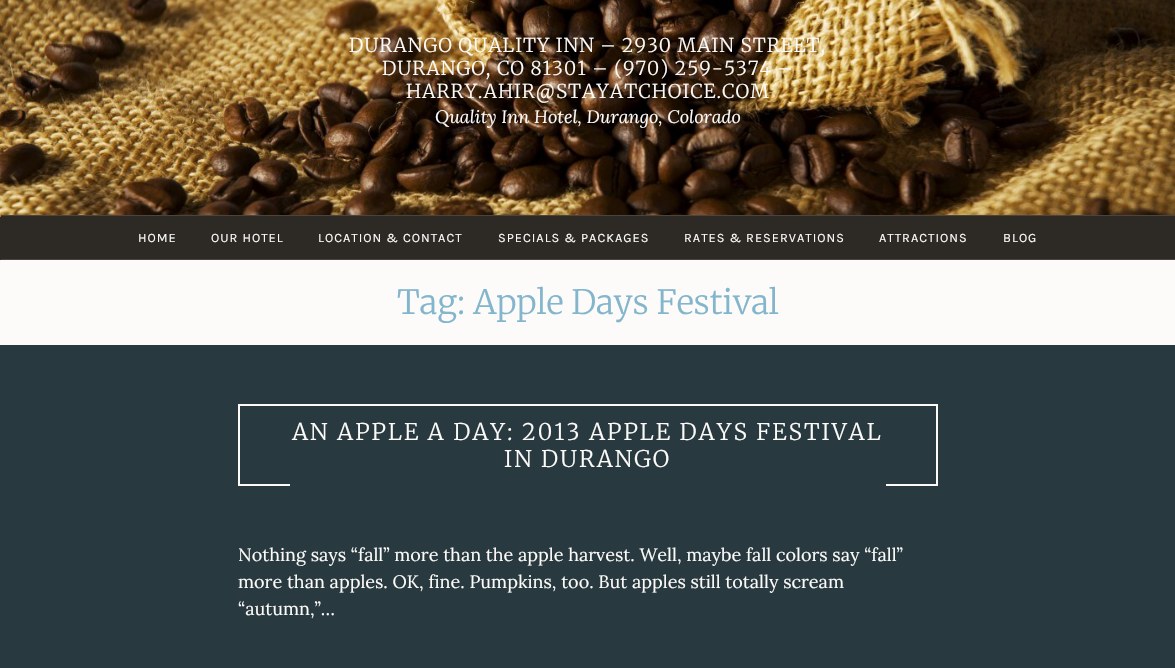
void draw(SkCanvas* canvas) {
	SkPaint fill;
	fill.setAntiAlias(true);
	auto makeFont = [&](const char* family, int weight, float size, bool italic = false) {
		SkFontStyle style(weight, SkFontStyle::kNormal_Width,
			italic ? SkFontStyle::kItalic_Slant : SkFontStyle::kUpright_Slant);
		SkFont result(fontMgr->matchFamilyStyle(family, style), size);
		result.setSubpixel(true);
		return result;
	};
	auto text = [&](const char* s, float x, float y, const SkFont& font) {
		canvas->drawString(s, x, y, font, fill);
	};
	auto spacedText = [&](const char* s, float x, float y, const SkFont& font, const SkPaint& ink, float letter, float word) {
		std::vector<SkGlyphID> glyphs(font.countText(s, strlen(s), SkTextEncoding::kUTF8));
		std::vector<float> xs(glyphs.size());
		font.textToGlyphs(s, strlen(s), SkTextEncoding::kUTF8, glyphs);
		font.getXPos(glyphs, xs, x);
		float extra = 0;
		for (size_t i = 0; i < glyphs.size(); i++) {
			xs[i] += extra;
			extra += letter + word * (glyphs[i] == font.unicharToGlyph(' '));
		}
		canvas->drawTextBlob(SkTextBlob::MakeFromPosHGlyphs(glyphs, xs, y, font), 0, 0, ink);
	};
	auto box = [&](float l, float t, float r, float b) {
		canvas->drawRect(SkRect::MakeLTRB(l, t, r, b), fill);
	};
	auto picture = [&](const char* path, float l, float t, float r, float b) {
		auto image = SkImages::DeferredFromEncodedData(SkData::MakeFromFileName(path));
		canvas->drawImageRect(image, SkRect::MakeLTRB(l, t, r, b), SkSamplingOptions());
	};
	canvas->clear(0xFFFCFBFA);
	fill.setColor(0xFF2D2A26);
	box(0, 217, 1, 260);
	picture("image0.png", 0, 0, 1175, 217);
	box(1, 216, 1175, 259);
	fill.setColor(0xFF49443D);
	box(1, 215, 1175, 216);
	box(1, 259, 1175, 260);
	fill.setColor(0xFF293940);
	box(0, 345, 1175, 668);
	fill.setColor(0xFFFCFBF9);
	box(238, 404, 938, 406);
	box(936, 404, 938, 486);
	box(238, 404, 240, 486);
	box(240, 484, 290, 486);
	box(886, 484, 936, 486);
	auto font1 = makeFont("Merriweather", 300, 19.1f);
	spacedText("DURANGO QUALITY INN – 2930 MAIN STREET,", 349, 52, font1, fill, 1, 0);
	spacedText("DURANGO, CO 81301 – (970) 259-5374 –", 382, 75, font1, fill, 1, 0);
	spacedText("HARRY.AHIR@STAYATCHOICE.COM", 406, 98, font1, fill, 1, 0);
	auto font2 = makeFont("Lora", 400, 18, true);
	text("Quality Inn Hotel, Durango, Colorado", 435, 123, font2);
	auto font3 = makeFont("Karla", 400, 12.75f);
	spacedText("HOME", 138, 242, font3, fill, 1, 0);
	spacedText("OUR HOTEL", 211, 242, font3, fill, 1, 0);
	spacedText("LOCATION & CONTACT", 318, 242, font3, fill, 1, 0);
	spacedText("SPECIALS & PACKAGES", 498, 242, font3, fill, 1, 0);
	spacedText("RATES & RESERVATIONS", 684, 242, font3, fill, 1, 0);
	spacedText("ATTRACTIONS", 879, 242, font3, fill, 1, 0);
	spacedText("BLOG", 1003, 242, font3, fill, 1, 0);
	auto font4 = makeFont("Merriweather", 300, 33.4f);
	fill.setColor(0xFF83B6CC);
	text("Tag: Apple Days Festival", 397, 314, font4);
	auto font5 = makeFont("Merriweather", 300, 22.9f);
	fill.setColor(0xFFFCFBF9);
	spacedText("AN APPLE A DAY: 2013 APPLE DAYS FESTIVAL", 292, 440, font5, fill, 2, 0);
	spacedText("IN DURANGO", 504, 467, font5, fill, 2, 0);
	auto font6 = makeFont("Lora", 400, 18);
	text("Nothing says “fall” more than the apple harvest. Well, maybe fall colors say “fall”", 238, 561, font6);
	text("more than apples. OK, fine. Pumpkins, too. But apples still totally scream", 238, 588, font6);
	text("“autumn,”…", 238, 615, font6);
}
